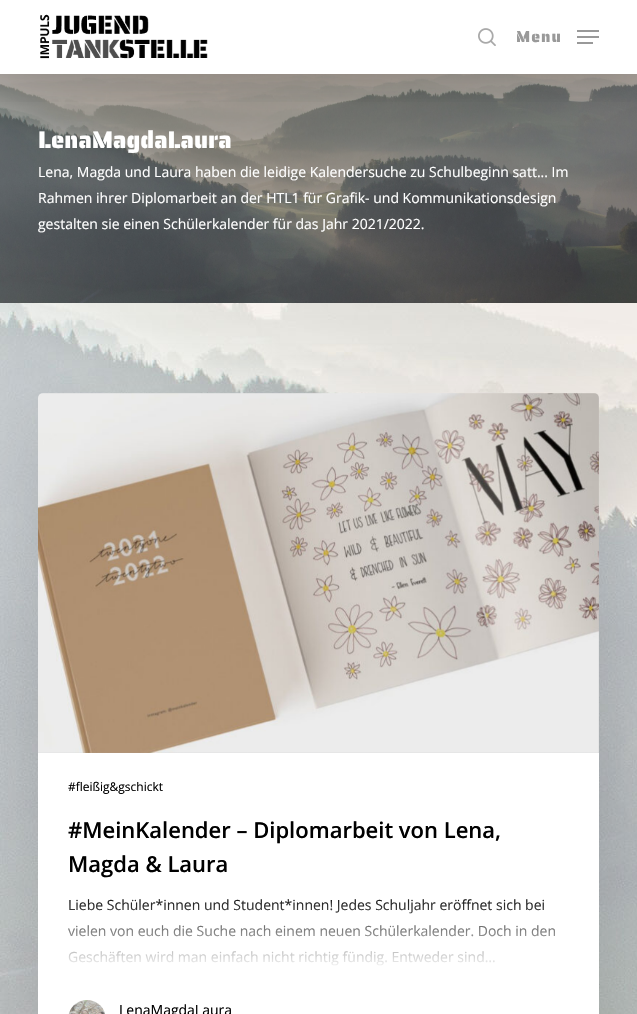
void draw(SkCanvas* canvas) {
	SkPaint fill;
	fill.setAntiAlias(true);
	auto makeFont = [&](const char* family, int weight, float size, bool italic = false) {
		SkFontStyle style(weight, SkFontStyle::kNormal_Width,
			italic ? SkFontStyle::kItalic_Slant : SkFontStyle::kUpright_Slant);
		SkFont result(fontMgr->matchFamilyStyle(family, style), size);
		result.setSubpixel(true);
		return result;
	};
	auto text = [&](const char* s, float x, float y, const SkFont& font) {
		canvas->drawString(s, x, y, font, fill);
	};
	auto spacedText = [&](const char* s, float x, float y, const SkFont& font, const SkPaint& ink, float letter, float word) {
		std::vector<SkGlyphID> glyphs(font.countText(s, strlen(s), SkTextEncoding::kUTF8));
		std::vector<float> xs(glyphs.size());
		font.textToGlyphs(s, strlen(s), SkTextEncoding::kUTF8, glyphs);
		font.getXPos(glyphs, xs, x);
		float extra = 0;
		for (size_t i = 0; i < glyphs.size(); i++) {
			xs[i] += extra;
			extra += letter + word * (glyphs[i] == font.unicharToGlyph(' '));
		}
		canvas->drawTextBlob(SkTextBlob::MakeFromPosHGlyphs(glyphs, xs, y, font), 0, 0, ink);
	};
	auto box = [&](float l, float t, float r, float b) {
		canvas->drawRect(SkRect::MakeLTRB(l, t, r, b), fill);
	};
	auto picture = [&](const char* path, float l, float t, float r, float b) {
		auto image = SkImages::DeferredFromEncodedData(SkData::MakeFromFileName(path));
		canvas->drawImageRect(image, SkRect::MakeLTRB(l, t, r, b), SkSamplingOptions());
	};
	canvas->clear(0xFFFFFFFF);
	picture("image0.png", 0, 303, 637, 1014);
	picture("image3.png", 0, 74, 637, 303);
	canvas->save();
	canvas->clipRect(SkRect::MakeLTRB(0, 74, 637, 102));
	fill.setColor(0x26000000);
	fill.setMaskFilter(SkMaskFilter::MakeBlur(kNormal_SkBlurStyle, 22.5f));
	canvas->drawRect(SkRect::MakeLTRB(0, 3, 637, 77), fill);
	fill.setMaskFilter(nullptr);
	canvas->restore();
	picture("image1.png", 40, 14, 208, 59);
	picture("image2.png", 478, 28, 496, 46);
	fill.setColor(0xFF999999);
	box(577, 30, 599, 32);
	box(577, 42, 593, 44);
	box(577, 36, 599, 38);
	fill.setColor(0x24000000);
	fill.setMaskFilter(SkMaskFilter::MakeBlur(kNormal_SkBlurStyle, 45));
	canvas->drawRoundRect(SkRect::MakeLTRB(38, 423, 599, 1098), 5, 5, fill);
	fill.setMaskFilter(nullptr);
	picture("image4.png", 38, 393, 599, 753);
	fill.setColor(0xFFFFFFFF);
	box(38, 753, 599, 1014);
	picture("image5.png", 68, 1000, 105, 1014);
	auto font1 = makeFont("Saira Stencil One", 400, 16);
	fill.setColor(0xFF999999);
	spacedText("Menu", 516, 42, font1, fill, 1, 0);
	auto font2 = makeFont("Saira Stencil One", 400, 24);
	fill.setColor(0xFFFFFFFF);
	text("LenaMagdaLaura", 38, 148, font2);
	auto font3 = makeFont("Open Sans", 400, 14);
	text("Lena, Magda und Laura haben die leidige Kalendersuche zu Schulbeginn satt... Im", 38, 177, font3);
	text("Rahmen ihrer Diplomarbeit an der HTL1 für Grafik- und Kommunikationsdesign", 38, 203, font3);
	text("gestalten sie einen Schülerkalender für das Jahr 2021/2022.", 38, 229, font3);
	auto font4 = makeFont("Open Sans", 400, 12);
	fill.setColor(0xFF000000);
	text("#fleißig&gschickt", 68, 791, font4);
	auto font5 = makeFont("Open Sans", 600, 22);
	text("#MeinKalender – Diplomarbeit von Lena,", 68, 838, font5);
	text("Magda & Laura", 68, 872, font5);
	{
		const SkColor colors[] = {0xFF000000, 0xFFFFFFFF};
		const float stops[] = {0, 1};
		const SkPoint ends[] = {{318, 892}, {318, 970}};
		fill.setShader(SkGradientShader::MakeLinear(ends, colors, stops, 2, SkTileMode::kClamp));
		fill.setAlpha(255);
	}
	text("Liebe Schüler*innen und Student*innen! Jedes Schuljahr eröffnet sich bei", 68, 910, font3);
	text("vielen von euch die Suche nach einem neuen Schülerkalender. Doch in den", 68, 936, font3);
	text("Geschäften wird man einfach nicht richtig fündig. Entweder sind…", 68, 962, font3);
	fill.setShader(nullptr);
	fill.setColor(0xFF000000);
	text("LenaMagdaLaura", 119, 1015, font3);
}
